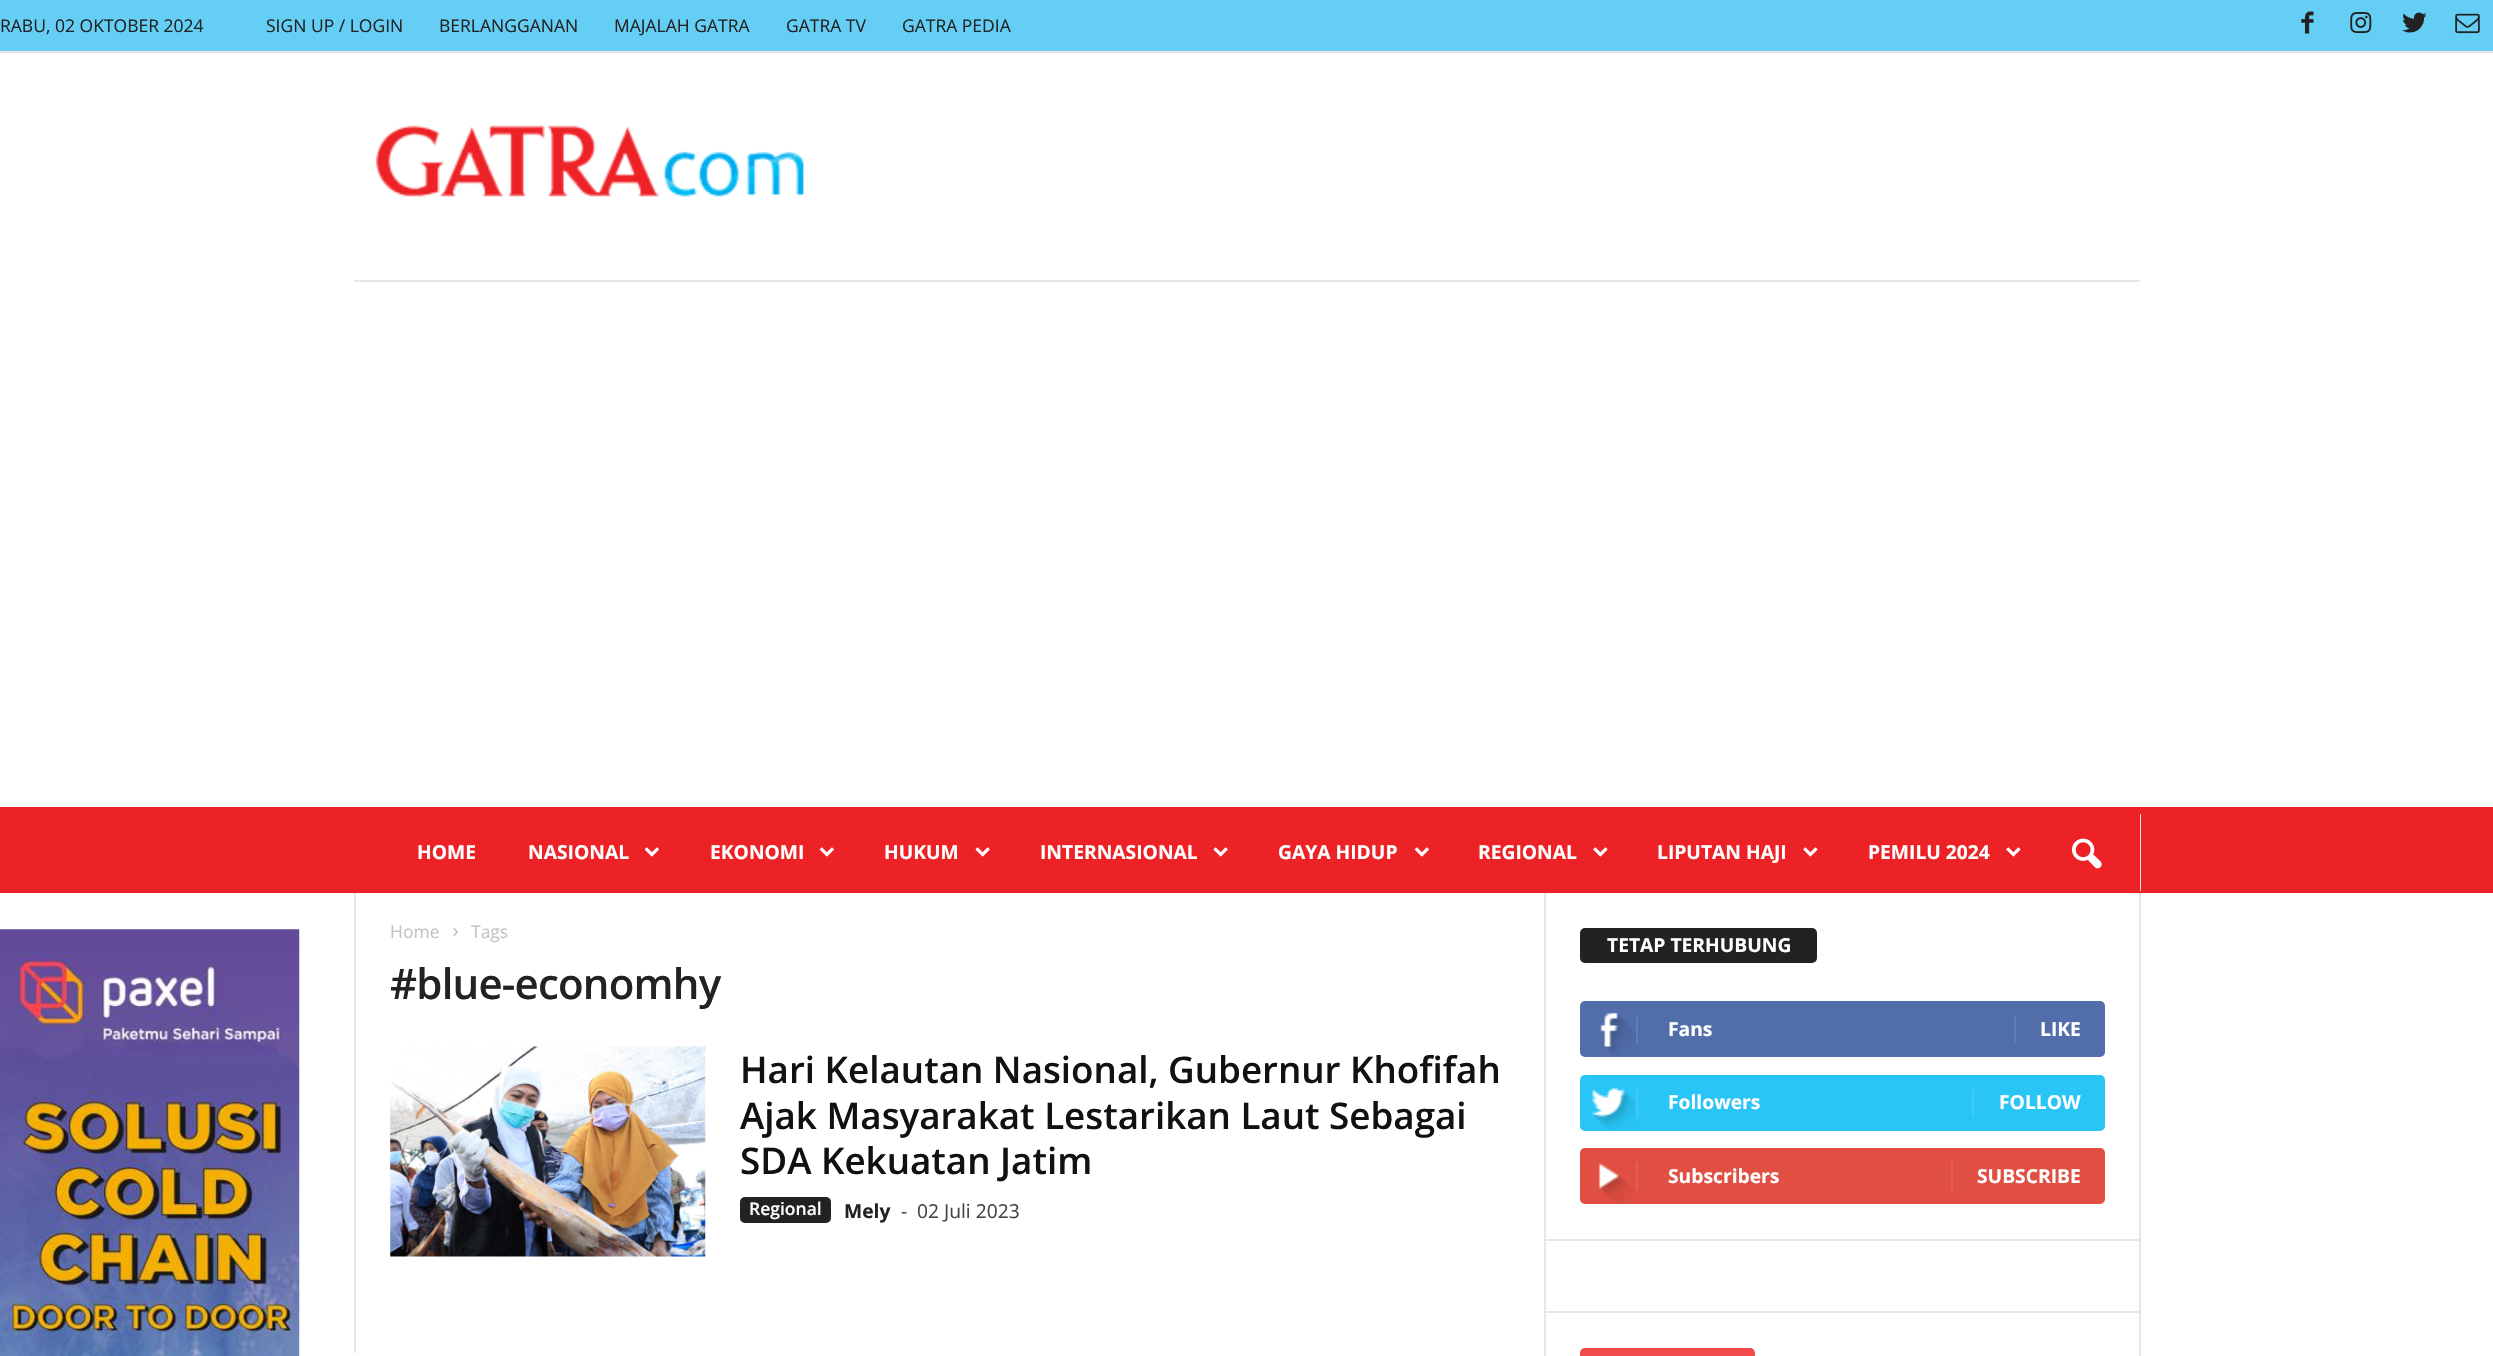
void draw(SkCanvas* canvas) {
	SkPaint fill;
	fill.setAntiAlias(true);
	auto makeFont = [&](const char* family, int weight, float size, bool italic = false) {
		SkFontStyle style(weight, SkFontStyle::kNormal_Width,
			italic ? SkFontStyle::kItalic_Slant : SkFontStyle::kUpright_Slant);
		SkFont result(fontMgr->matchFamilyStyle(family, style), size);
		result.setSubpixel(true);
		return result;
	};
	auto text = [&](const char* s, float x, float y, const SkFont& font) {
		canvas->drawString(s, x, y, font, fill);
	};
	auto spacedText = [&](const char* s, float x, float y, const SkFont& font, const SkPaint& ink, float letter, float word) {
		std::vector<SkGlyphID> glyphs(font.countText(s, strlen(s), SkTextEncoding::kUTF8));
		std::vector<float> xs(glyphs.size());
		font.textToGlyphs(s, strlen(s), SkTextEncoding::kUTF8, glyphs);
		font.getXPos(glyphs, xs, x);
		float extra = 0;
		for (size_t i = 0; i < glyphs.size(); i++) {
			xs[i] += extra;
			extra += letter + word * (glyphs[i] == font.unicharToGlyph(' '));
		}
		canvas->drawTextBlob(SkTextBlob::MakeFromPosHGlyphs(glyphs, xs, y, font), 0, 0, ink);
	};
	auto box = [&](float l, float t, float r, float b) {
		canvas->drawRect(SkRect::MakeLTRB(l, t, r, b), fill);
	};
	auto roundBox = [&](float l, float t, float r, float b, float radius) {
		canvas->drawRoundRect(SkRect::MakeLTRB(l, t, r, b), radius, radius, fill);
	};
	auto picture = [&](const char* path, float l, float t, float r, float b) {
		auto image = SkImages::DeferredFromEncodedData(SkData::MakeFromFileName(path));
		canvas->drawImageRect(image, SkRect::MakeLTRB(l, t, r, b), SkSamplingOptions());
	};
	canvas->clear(0xFFFFFFFF);
	fill.setColor(0xFF64CEF5);
	box(0, 0, 2493, 51);
	fill.setColor(0xFFE6E6E6);
	box(0, 51, 2493, 53);
	picture("image0.png", 2301, 11, 2314, 34);
	picture("image1.png", 2350, 12, 2372, 34);
	picture("image2.png", 2402, 12, 2427, 33);
	picture("image3.png", 2455, 13, 2480, 34);
	box(354, 280, 2140, 282);
	picture("image4.png", 375, 125, 804, 197);
	fill.setColor(0xFFED2227);
	box(0, 807, 2493, 893);
	picture("image5.png", 644, 847, 659, 857);
	picture("image5.png", 819, 847, 834, 857);
	picture("image6.png", 975, 847, 990, 857);
	picture("image6.png", 1213, 847, 1228, 857);
	picture("image5.png", 1414, 847, 1429, 857);
	picture("image7.png", 1593, 847, 1608, 857);
	picture("image7.png", 1803, 847, 1818, 857);
	picture("image7.png", 2006, 847, 2021, 857);
	picture("image8.png", 2072, 838, 2102, 869);
	fill.setColor(0xFFE6E6E6);
	box(2140, 814, 2141, 891);
	picture("image9.png", 0, 929, 300, 1356);
	box(354, 893, 356, 1353);
	picture("image10.png", 453, 927, 458, 936);
	picture("image11.png", 390, 1046, 706, 1257);
	fill.setColor(0xFF222222);
	roundBox(740, 1197, 831, 1223, 5);
	fill.setColor(0xFFE6E6E6);
	box(1544, 893, 1546, 1356);
	fill.setColor(0xFF222222);
	roundBox(1580, 928, 1817, 963, 5);
	fill.setColor(0xFF516EAB);
	roundBox(1580, 1001, 2105, 1057, 5);
	picture("image12.png", 1600, 1012, 1636, 1057);
	fill.setColor(0xFF627DB3);
	box(1636, 1015, 1638, 1043);
	box(2014, 1015, 2016, 1043);
	fill.setColor(0xFF29C5F6);
	roundBox(1580, 1075, 2105, 1131, 5);
	picture("image13.png", 1591, 1088, 1636, 1130);
	fill.setColor(0xFF3ECBF7);
	box(1636, 1089, 1638, 1117);
	box(1972, 1089, 1974, 1117);
	fill.setColor(0xFFE14E42);
	roundBox(1580, 1148, 2105, 1204, 5);
	picture("image14.png", 1598, 1163, 1633, 1204);
	fill.setColor(0xFFE46055);
	box(1636, 1162, 1638, 1190);
	box(1951, 1162, 1953, 1190);
	fill.setColor(0xFFE6E6E6);
	box(1545, 1239, 2139, 1241);
	box(1545, 1311, 2139, 1313);
	fill.setColor(0xFFF24B4B);
	roundBox(1580, 1348, 1755, 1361, 5);
	fill.setColor(0xFFE6E6E6);
	box(2139, 893, 2141, 1356);
	auto font1 = makeFont("Open Sans", 400, 17.5f);
	fill.setColor(0xFF222222);
	text("RABU, 02 OKTOBER 2024", 0, 32, font1);
	text("SIGN UP / LOGIN", 266, 32, font1);
	text("BERLANGGANAN", 439, 32, font1);
	text("MAJALAH GATRA", 614, 32, font1);
	text("GATRA TV", 786, 32, font1);
	text("GATRA PEDIA", 902, 32, font1);
	auto font2 = makeFont("Open Sans", 700, 19.25f);
	fill.setColor(0xFFFFFFFF);
	text("HOME", 417, 859, font2);
	text("NASIONAL", 528, 859, font2);
	text("EKONOMI", 710, 859, font2);
	text("HUKUM", 884, 859, font2);
	text("INTERNASIONAL", 1040, 859, font2);
	text("GAYA HIDUP", 1278, 859, font2);
	text("REGIONAL", 1478, 859, font2);
	text("LIPUTAN HAJI", 1657, 859, font2);
	text("PEMILU 2024", 1868, 859, font2);
	fill.setColor(0xFFC3C3C3);
	text("Home", 390, 938, font1);
	text("Tags", 471, 938, font1);
	auto font3 = makeFont("Open Sans", 600, 42);
	fill.setColor(0xFF222222);
	spacedText("#blue-economhy", 390, 999, font3, fill, -0.8f, 0);
	auto font4 = makeFont("Open Sans", 600, 36.75f);
	fill.setColor(0xFF111111);
	text("Hari Kelautan Nasional, Gubernur Khofifah", 740, 1083, font4);
	text("Ajak Masyarakat Lestarikan Laut Sebagai", 740, 1129, font4);
	text("SDA Kekuatan Jatim", 740, 1174, font4);
	auto font5 = makeFont("Open Sans", 600, 17.5f);
	fill.setColor(0xFFFFFFFF);
	text("Regional", 749, 1215, font5);
	fill.setColor(0xFF222222);
	text("Mely", 844, 1218, font2);
	auto font6 = makeFont("Open Sans", 400, 19.25f);
	fill.setColor(0xFF444444);
	text("-", 901, 1218, font6);
	text("02 Juli 2023", 917, 1218, font6);
	fill.setColor(0xFFFFFFFF);
	text("TETAP TERHUBUNG", 1607, 952, font2);
	text("Fans", 1668, 1036, font2);
	text("LIKE", 2040, 1036, font2);
	text("Followers", 1668, 1109, font2);
	text("FOLLOW", 1999, 1109, font2);
	text("Subscribers", 1668, 1183, font2);
	text("SUBSCRIBE", 1977, 1183, font2);
}
